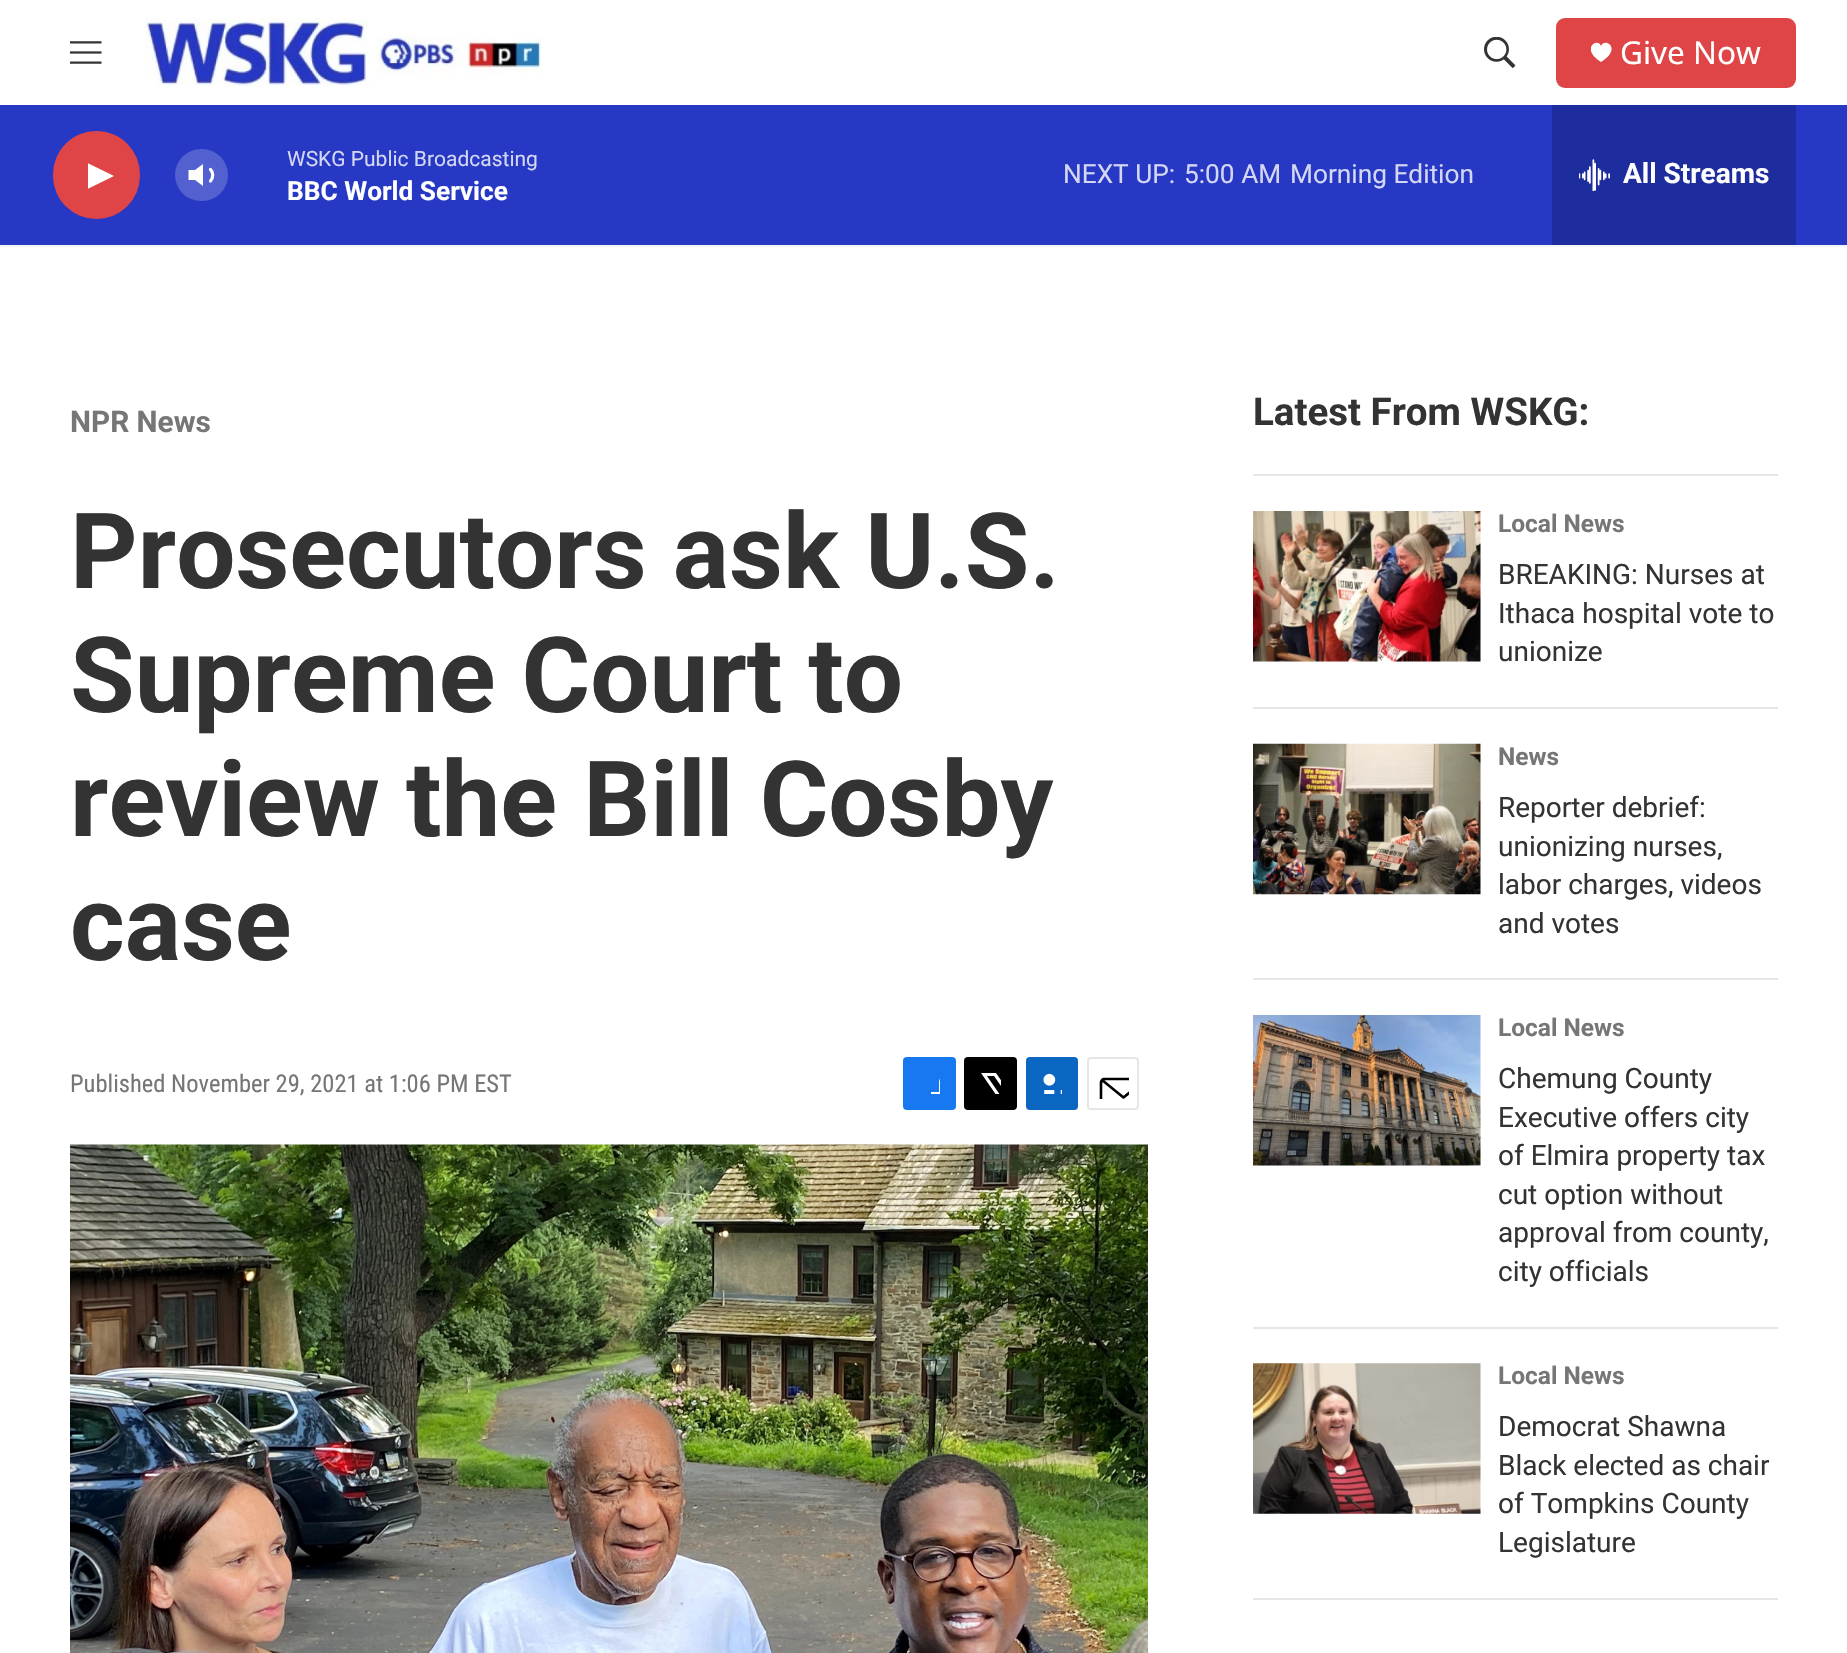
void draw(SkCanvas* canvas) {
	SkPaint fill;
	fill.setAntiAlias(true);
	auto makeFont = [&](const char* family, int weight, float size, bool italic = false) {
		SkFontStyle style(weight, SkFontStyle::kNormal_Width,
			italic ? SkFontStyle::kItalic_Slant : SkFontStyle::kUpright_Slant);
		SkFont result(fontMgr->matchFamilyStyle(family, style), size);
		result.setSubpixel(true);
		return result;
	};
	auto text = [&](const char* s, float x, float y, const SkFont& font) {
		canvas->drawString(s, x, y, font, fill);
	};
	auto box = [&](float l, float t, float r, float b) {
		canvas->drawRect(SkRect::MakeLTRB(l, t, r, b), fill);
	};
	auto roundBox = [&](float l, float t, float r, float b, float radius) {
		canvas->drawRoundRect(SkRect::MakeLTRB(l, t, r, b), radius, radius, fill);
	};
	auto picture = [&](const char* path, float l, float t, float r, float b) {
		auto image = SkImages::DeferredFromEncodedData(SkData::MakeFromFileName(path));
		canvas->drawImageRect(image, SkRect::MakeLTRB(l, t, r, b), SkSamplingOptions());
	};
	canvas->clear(0xFFFFFFFF);
	fill.setColor(0xFFF5F5F5);
	box(0, 245, 1847, 247);
	picture("image0.png", 70, 41, 102, 64);
	picture("image1.png", 145, 18, 542, 87);
	picture("image2.png", 1484, 37, 1516, 68);
	fill.setColor(0xFFDF4547);
	roundBox(1556, 18, 1796, 88, 9);
	canvas->save();
	canvas->clipRect(SkRect::MakeLTRB(1591, 42, 1612, 63));
	fill.setColor(0xFFFFFFFF);
	canvas->drawPath(SkPathBuilder().moveTo(1601, 46).cubicTo(1598, 37, 1579.5f, 48.5f, 1601, 62).cubicTo(1623, 48.5f, 1604.5f, 37, 1601, 46).close().detach(), fill);
	canvas->restore();
	fill.setColor(0xFF2638C4);
	box(0, 105, 1847, 245);
	fill.setColor(0xFFDF4547);
	roundBox(53, 131, 140, 219, 43.5f);
	canvas->save();
	canvas->clipRect(SkRect::MakeLTRB(88, 159, 114, 193));
	fill.setColor(0xFFFFFFFF);
	canvas->drawPath(SkPathBuilder().moveTo(87.5f, 163).lineTo(114, 176).lineTo(87.5f, 189).close().detach(), fill);
	canvas->restore();
	canvas->drawPath(SkPathBuilder().moveTo(203, 164).lineTo(195, 170).lineTo(188.5f, 170).lineTo(188.5f, 180).lineTo(195, 180).lineTo(203, 186).close().detach(), fill);
	fill.setStyle(SkPaint::kStroke_Style);
	fill.setStrokeWidth(3.2f);
	fill.setStrokeCap(SkPaint::kRound_Cap);
	fill.setStrokeJoin(SkPaint::kRound_Join);
	canvas->drawPath(SkPathBuilder().moveTo(210.5f, 169.5f).cubicTo(213.5f, 172.5f, 213.5f, 177.5f, 210.5f, 181).detach(), fill);
	fill.setStyle(SkPaint::kFill_Style);
	fill.setColor(0x33FFFFFF);
	roundBox(175, 149, 228, 201, 26);
	fill.setColor(0xFF1E2D9D);
	box(1552, 105, 1796, 245);
	picture("image3.png", 1579, 159, 1610, 191);
	fill.setColor(0xFF1778F2);
	roundBox(903, 1057, 956, 1110, 4);
	canvas->save();
	canvas->clipRect(SkRect::MakeLTRB(919, 1073, 940, 1094));
	fill.setColor(0xFFFFFFFF);
	canvas->drawPath(SkPathBuilder().moveTo(948, 1110).lineTo(939, 1110).lineTo(939, 1101).lineTo(931, 1101).lineTo(931, 1092).lineTo(939, 1092).lineTo(939, 1082).cubicTo(940, 1073.5f, 948.5f, 1073, 956, 1074).lineTo(956, 1082).cubicTo(946.5f, 1082, 948, 1083.5f, 948, 1092).lineTo(956, 1092).lineTo(955, 1101).lineTo(948, 1101).close().detach(), fill);
	canvas->restore();
	fill.setColor(0xFF000000);
	roundBox(964, 1057, 1017, 1110, 4);
	canvas->save();
	canvas->clipRect(SkRect::MakeLTRB(980, 1073, 1001, 1094));
	fill.setColor(0xFFFFFFFF);
	canvas->drawPath(SkPathBuilder().moveTo(1011, 1095).lineTo(1017, 1103.5f).cubicTo(1017, 1105, 1017, 1107, 1016.5f, 1108).lineTo(994, 1076).lineTo(987, 1076).lineTo(1010.5f, 1110).lineTo(1006.5f, 1110).lineTo(1003, 1105).lineTo(998.5f, 1110).lineTo(994, 1110).lineTo(1001, 1102).lineTo(981, 1073).lineTo(996, 1073).lineTo(1009, 1092).lineTo(1017, 1083).lineTo(1017, 1088).close().detach(), fill);
	canvas->restore();
	fill.setColor(0xFF0A66C1);
	roundBox(1026, 1057, 1078, 1110, 4);
	picture("image4.png", 1043, 1073, 1062, 1094);
	fill.setStyle(SkPaint::kStroke_Style);
	fill.setStrokeWidth(2);
	fill.setStrokeCap(SkPaint::kButt_Cap);
	fill.setStrokeJoin(SkPaint::kMiter_Join);
	fill.setColor(0xFFE6E6E6);
	canvas->drawRoundRect(SkRect::MakeLTRB(1088, 1058, 1138, 1109), 3, 3, fill);
	canvas->save();
	canvas->clipRect(SkRect::MakeLTRB(1097, 1068, 1129, 1099));
	fill.setStrokeWidth(2.6f);
	fill.setStrokeCap(SkPaint::kRound_Cap);
	fill.setStrokeJoin(SkPaint::kRound_Join);
	fill.setColor(0xFF000000);
	canvas->drawPath(SkPathBuilder().moveTo(1146, 1106).cubicTo(1146, 1107.5f, 1144.5f, 1109, 1143, 1109).lineTo(1104, 1109).cubicTo(1102.5f, 1109, 1101, 1107.5f, 1101, 1106).lineTo(1101, 1082.5f).cubicTo(1101, 1080.5f, 1102.5f, 1079, 1104, 1079).lineTo(1143, 1079).cubicTo(1144.5f, 1079, 1146, 1080.5f, 1146, 1082.5f).close().moveTo(1145, 1080).lineTo(1123.5f, 1097.5f).lineTo(1102, 1080).detach(), fill);
	canvas->restore();
	picture("image5.png", 70, 1144, 1148, 1653);
	fill.setStyle(SkPaint::kFill_Style);
	fill.setColor(0xFFE6E6E6);
	box(1253, 474, 1778, 476);
	box(1253, 707, 1778, 709);
	picture("image6.png", 1253, 511, 1481, 662);
	box(1253, 978, 1778, 980);
	picture("image7.png", 1253, 743, 1481, 895);
	box(1253, 1327, 1778, 1329);
	picture("image8.png", 1253, 1015, 1481, 1166);
	box(1253, 1598, 1778, 1600);
	picture("image9.png", 1253, 1363, 1481, 1514);
	auto font1 = makeFont("Noto Sans", 400, 31.5f);
	fill.setColor(0xFFFFFFFF);
	text("Give Now", 1620, 64, font1);
	auto font2 = makeFont("Roboto", 400, 21);
	fill.setColor(0xFFD4D7F3);
	text("WSKG Public Broadcasting", 287, 166, font2);
	auto font3 = makeFont("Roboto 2", 700, 26.25f);
	fill.setColor(0xFFFFFFFF);
	text("BBC World Service", 287, 200, font3);
	auto font4 = makeFont("Roboto", 400, 26.25f);
	fill.setColor(0xFFD4D7F3);
	text("NEXT UP:", 1063, 183, font4);
	text("5:00 AM", 1184, 183, font4);
	text("Morning Edition", 1290, 183, font4);
	auto font5 = makeFont("Roboto 2", 700, 28);
	fill.setColor(0xFFFFFFFF);
	text("All Streams", 1623, 183, font5);
	auto font6 = makeFont("Roboto", 700, 29.75f);
	fill.setColor(0xFF767676);
	text("NPR News", 70, 432, font6);
	auto font7 = makeFont("Roboto", 700, 105);
	fill.setColor(0xFF333333);
	text("Prosecutors ask U.S.", 70, 588, font7);
	text("Supreme Court to", 70, 712, font7);
	text("review the Bill Cosby", 70, 836, font7);
	text("case", 70, 960, font7);
	auto font8 = makeFont("Roboto Condensed", 400, 24.5f);
	fill.setColor(0xFF767676);
	text("Published November 29, 2021 at 1:06 PM EST", 70, 1092, font8);
	auto font9 = makeFont("Roboto", 700, 38.5f);
	fill.setColor(0xFF333333);
	text("Latest From WSKG:", 1253, 425, font9);
	auto font10 = makeFont("Roboto", 700, 24.5f);
	fill.setColor(0xFF767676);
	text("Local News", 1498, 532, font10);
	auto font11 = makeFont("Roboto", 400, 28);
	fill.setColor(0xFF333333);
	text("BREAKING: Nurses at", 1498, 584, font11);
	text("Ithaca hospital vote to", 1498, 623, font11);
	text("unionize", 1498, 661, font11);
	fill.setColor(0xFF767676);
	text("News", 1498, 765, font10);
	fill.setColor(0xFF333333);
	text("Reporter debrief:", 1498, 817, font11);
	text("unionizing nurses,", 1498, 856, font11);
	text("labor charges, videos", 1498, 894, font11);
	text("and votes", 1498, 933, font11);
	fill.setColor(0xFF767676);
	text("Local News", 1498, 1036, font10);
	fill.setColor(0xFF333333);
	text("Chemung County", 1498, 1088, font11);
	text("Executive offers city", 1498, 1127, font11);
	text("of Elmira property tax", 1498, 1165, font11);
	text("cut option without", 1498, 1204, font11);
	text("approval from county,", 1498, 1242, font11);
	text("city officials", 1498, 1281, font11);
	fill.setColor(0xFF767676);
	text("Local News", 1498, 1384, font10);
	fill.setColor(0xFF333333);
	text("Democrat Shawna", 1498, 1436, font11);
	text("Black elected as chair", 1498, 1475, font11);
	text("of Tompkins County", 1498, 1513, font11);
	text("Legislature", 1498, 1552, font11);
}
